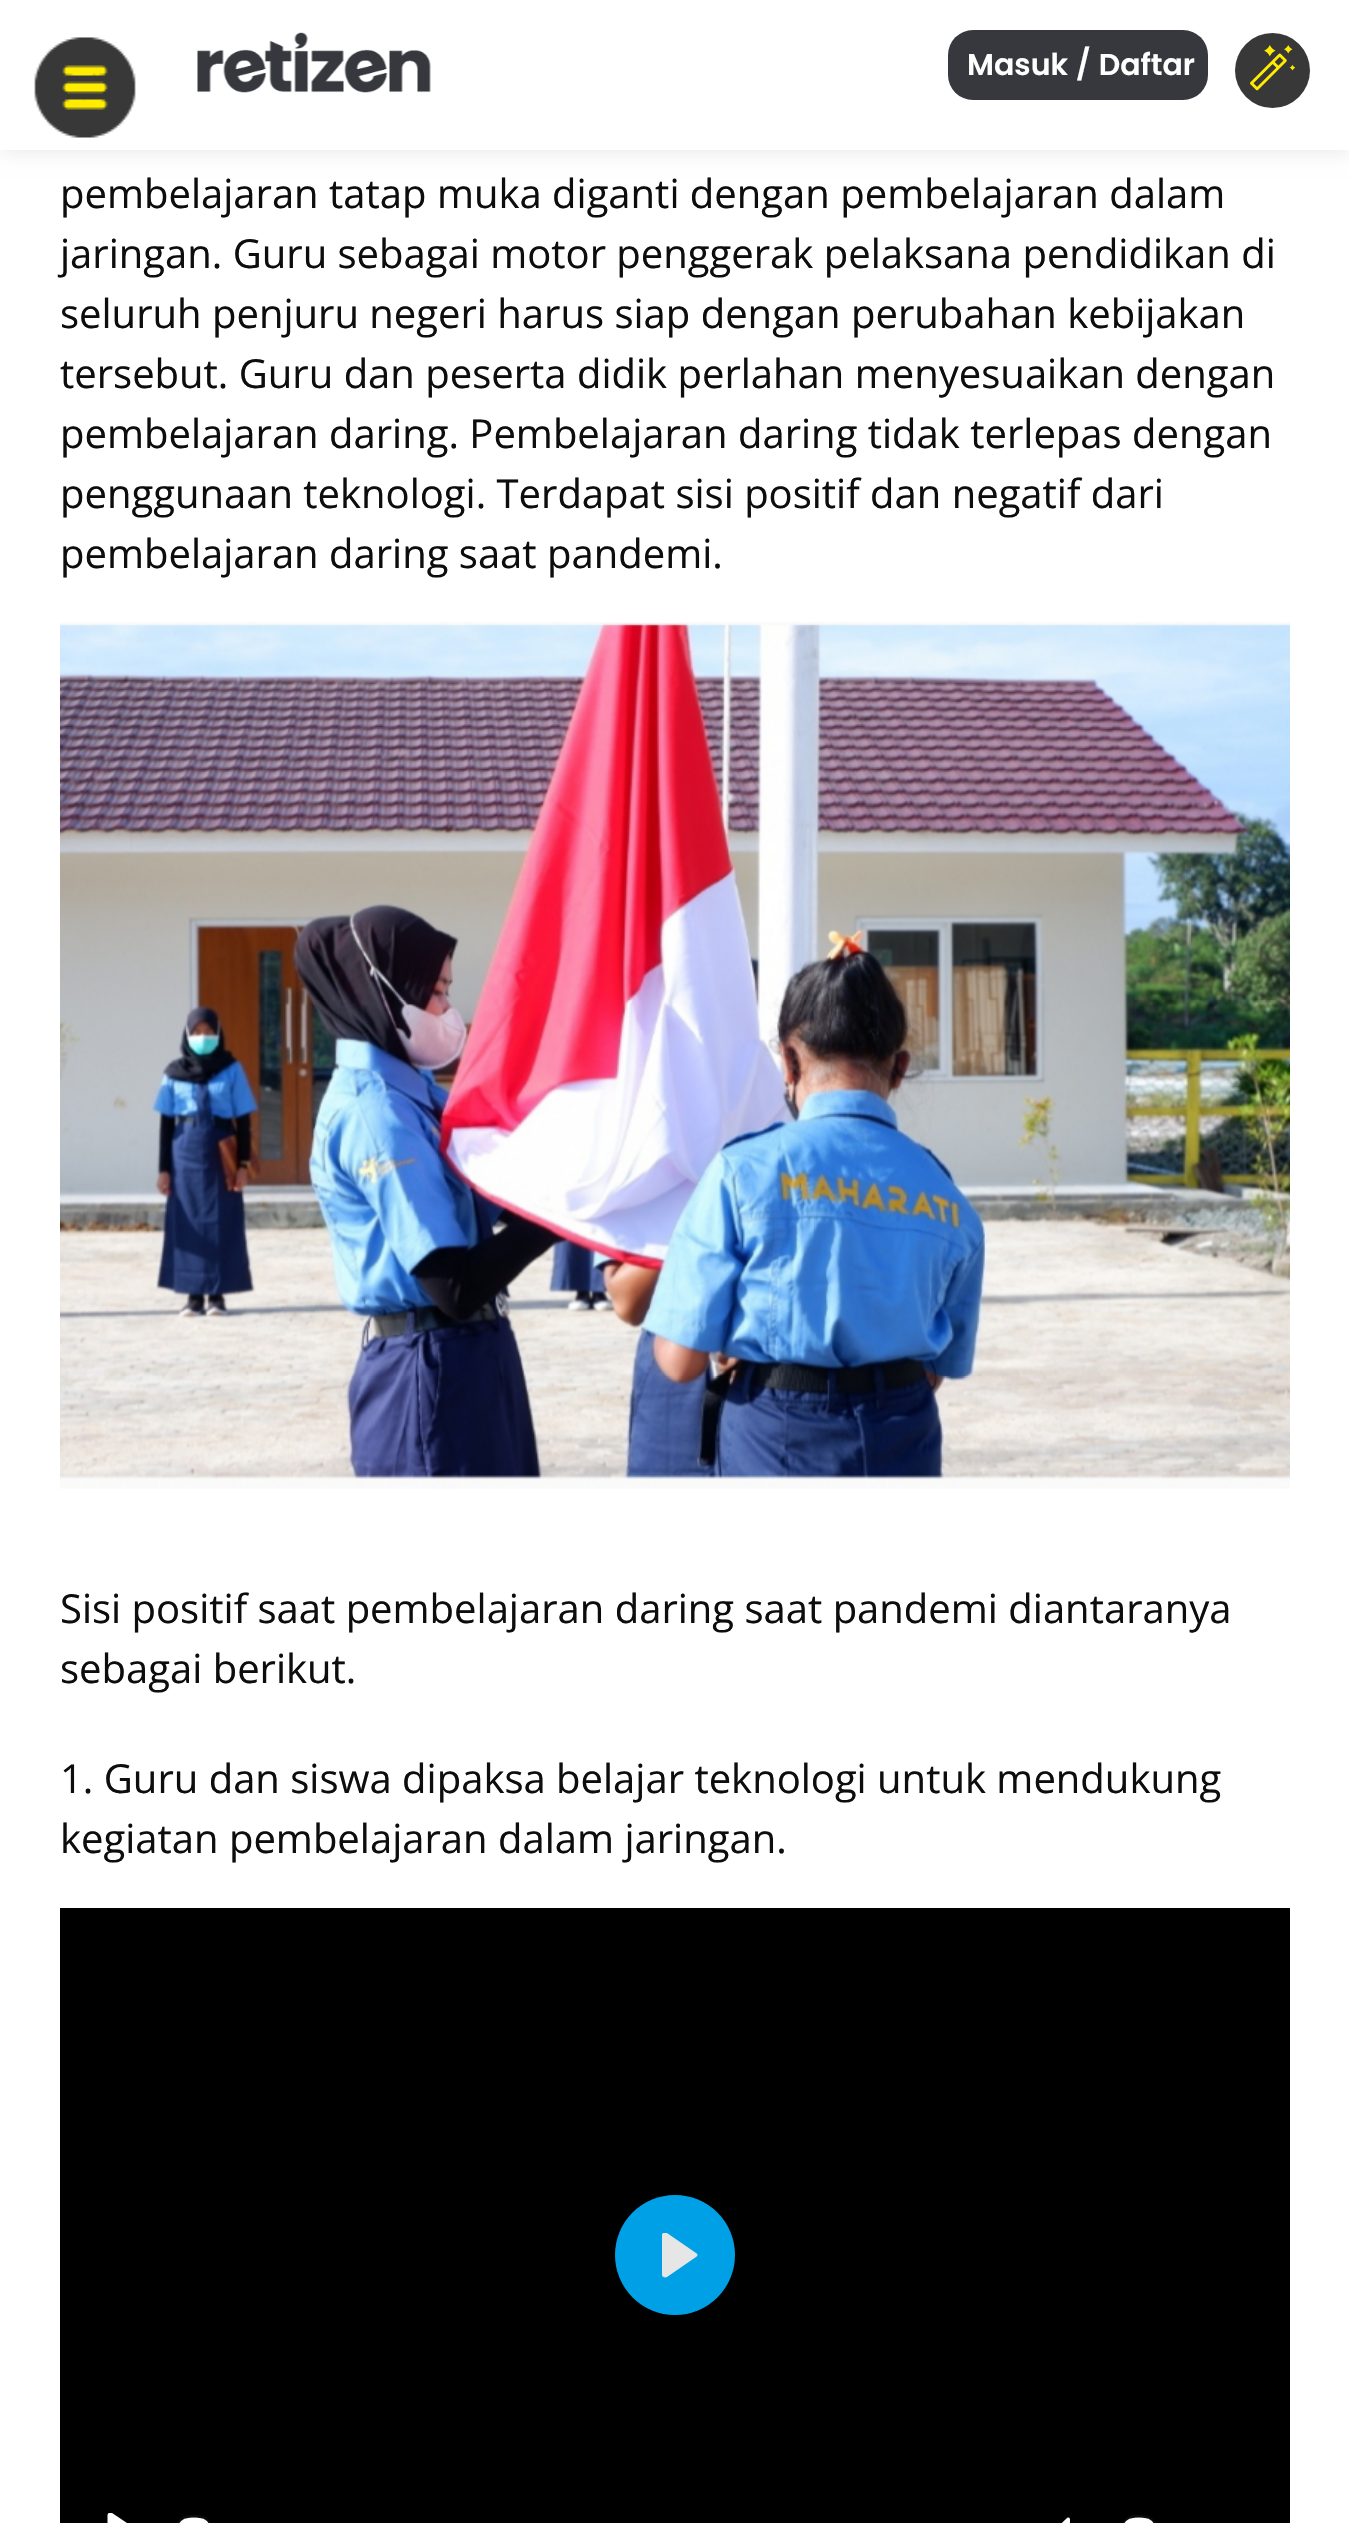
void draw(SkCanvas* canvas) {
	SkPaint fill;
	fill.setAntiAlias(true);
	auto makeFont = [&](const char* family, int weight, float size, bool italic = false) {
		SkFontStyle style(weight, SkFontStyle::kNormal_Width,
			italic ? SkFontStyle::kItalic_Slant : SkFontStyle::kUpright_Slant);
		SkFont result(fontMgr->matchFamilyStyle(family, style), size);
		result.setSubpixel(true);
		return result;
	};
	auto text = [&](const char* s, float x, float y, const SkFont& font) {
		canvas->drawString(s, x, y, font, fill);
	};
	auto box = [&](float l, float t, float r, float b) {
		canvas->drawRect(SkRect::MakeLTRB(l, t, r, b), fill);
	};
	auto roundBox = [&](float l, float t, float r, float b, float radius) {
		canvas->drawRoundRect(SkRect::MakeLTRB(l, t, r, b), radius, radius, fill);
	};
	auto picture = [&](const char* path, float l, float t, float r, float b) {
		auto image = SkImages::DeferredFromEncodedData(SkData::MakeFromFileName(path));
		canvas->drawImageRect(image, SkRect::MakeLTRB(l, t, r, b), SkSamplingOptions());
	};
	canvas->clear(0xFFFFFFFF);
	fill.setColor(0x14000000);
	fill.setMaskFilter(SkMaskFilter::MakeBlur(kNormal_SkBlurStyle, 9));
	canvas->drawRect(SkRect::MakeLTRB(0, 3, 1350, 153), fill);
	fill.setMaskFilter(nullptr);
	fill.setColor(0xFFFFFFFF);
	box(0, 0, 1349, 150);
	picture("image0.png", 34, 37, 136, 138);
	picture("image1.png", 197, 32, 431, 93);
	fill.setColor(0xFF36383D);
	roundBox(948, 30, 1208, 100, 25);
	fill.setColor(0xFF383838);
	canvas->drawCircle(1272.5f, 70.5f, 37.5f, fill);
	picture("image2.png", 1250, 45, 1296, 91);
	picture("image3.png", 60, 622, 1290, 1489);
	fill.setColor(0xFF000000);
	box(60, 1908, 1290, 2523);
	fill.setColor(0xFF00A0E6);
	canvas->drawCircle(675, 2255, 60, fill);
	canvas->save();
	canvas->clipRect(SkRect::MakeLTRB(658, 2233, 703, 2278));
	fill.setColor(0xFFE6E6E6);
	canvas->drawPath(SkPathBuilder().moveTo(696, 2253).lineTo(667, 2233).cubicTo(665, 2232, 662, 2233, 662, 2235).lineTo(662, 2275).cubicTo(662, 2277, 665, 2278, 667, 2277).lineTo(696, 2257).cubicTo(698, 2256, 698, 2254, 696, 2253).close().detach(), fill);
	canvas->restore();
	picture("image6.png", 178, 2515, 1154, 2523);
	{
		const SkColor colors[] = {0x00000000, 0xBF000000};
		const float stops[] = {0, 1};
		const SkPoint ends[] = {{675, 2408}, {675, 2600}};
		fill.setShader(SkGradientShader::MakeLinear(ends, colors, stops, 2, SkTileMode::kClamp));
		fill.setAlpha(255);
	}
	box(179, 2515, 1154, 2523);
	picture("image4.png", 107, 2513, 127, 2523);
	fill.setStyle(SkPaint::kStroke_Style);
	fill.setStrokeWidth(3);
	fill.setShader(nullptr);
	fill.setColor(0x3323282F);
	canvas->drawRoundRect(SkRect::MakeLTRB(176.5f, 2516.5f, 211.5f, 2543.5f), 17.5f, 17.5f, fill);
	fill.setStyle(SkPaint::kFill_Style);
	fill.setColor(0xFFFFFFFF);
	roundBox(178, 2518, 210, 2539, 16);
	picture("image5.png", 1061, 2517, 1070, 2523);
	fill.setStyle(SkPaint::kStroke_Style);
	fill.setColor(0x3323282F);
	canvas->drawRoundRect(SkRect::MakeLTRB(1121.5f, 2516.5f, 1156.5f, 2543.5f), 17.5f, 17.5f, fill);
	fill.setStyle(SkPaint::kFill_Style);
	fill.setColor(0xFFFFFFFF);
	roundBox(1123, 2518, 1155, 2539, 16);
	auto font1 = makeFont("Poppins", 600, 30);
	text("Masuk / Daftar", 967, 75, font1);
	auto font2 = makeFont("Open Sans", 400, 40);
	fill.setColor(0xFF0D0D0D);
	text("pembelajaran tatap muka diganti dengan pembelajaran dalam", 60, 208, font2);
	text("jaringan. Guru sebagai motor penggerak pelaksana pendidikan di", 60, 268, font2);
	text("seluruh penjuru negeri harus siap dengan perubahan kebijakan", 60, 328, font2);
	text("tersebut. Guru dan peserta didik perlahan menyesuaikan dengan", 60, 388, font2);
	text("pembelajaran daring. Pembelajaran daring tidak terlepas dengan", 60, 448, font2);
	text("penggunaan teknologi. Terdapat sisi positif dan negatif dari", 60, 508, font2);
	text("pembelajaran daring saat pandemi.", 60, 568, font2);
	text("Sisi positif saat pembelajaran daring saat pandemi diantaranya", 60, 1623, font2);
	text("sebagai berikut.", 60, 1683, font2);
	text("1. Guru dan siswa dipaksa belajar teknologi untuk mendukung", 60, 1793, font2);
	text("kegiatan pembelajaran dalam jaringan.", 60, 1853, font2);
}
